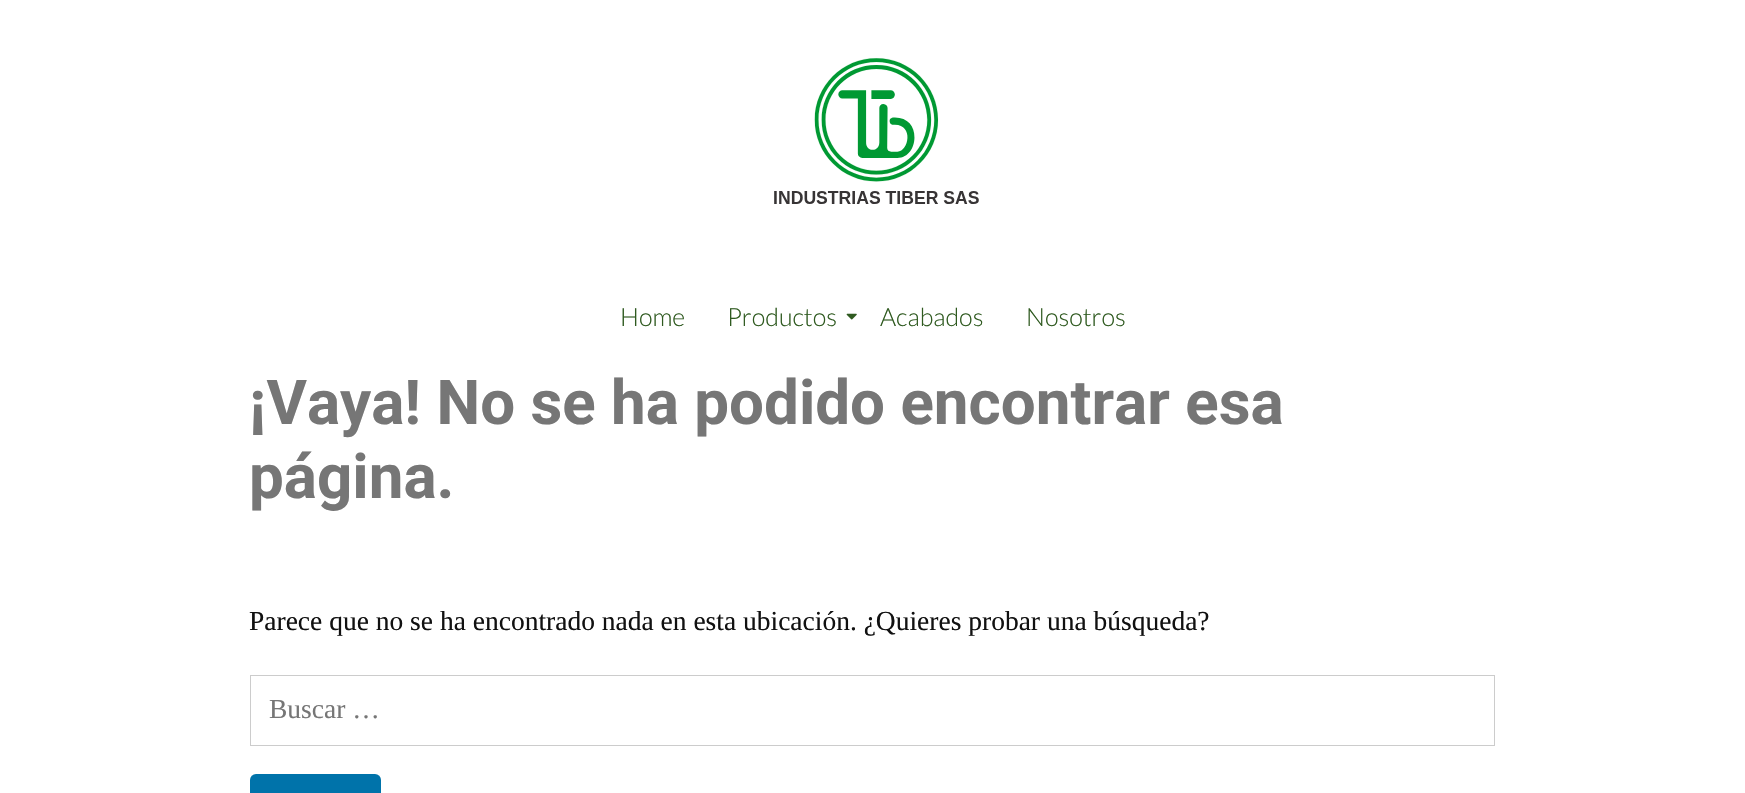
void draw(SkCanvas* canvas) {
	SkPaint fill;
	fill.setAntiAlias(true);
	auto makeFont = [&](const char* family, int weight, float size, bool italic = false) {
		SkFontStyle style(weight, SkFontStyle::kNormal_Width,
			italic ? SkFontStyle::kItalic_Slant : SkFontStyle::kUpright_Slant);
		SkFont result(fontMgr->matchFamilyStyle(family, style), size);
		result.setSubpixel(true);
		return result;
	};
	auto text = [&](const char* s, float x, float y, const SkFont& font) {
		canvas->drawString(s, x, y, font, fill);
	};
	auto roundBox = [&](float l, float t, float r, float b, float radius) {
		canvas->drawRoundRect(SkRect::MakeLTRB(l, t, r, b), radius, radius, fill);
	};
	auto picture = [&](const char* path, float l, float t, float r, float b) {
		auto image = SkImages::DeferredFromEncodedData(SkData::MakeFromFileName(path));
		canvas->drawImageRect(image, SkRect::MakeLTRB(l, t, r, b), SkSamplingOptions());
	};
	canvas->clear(0xFFFFFFFF);
	picture("image0.png", 774, 58, 979, 204);
	picture("image1.png", 846, 313, 857, 320);
	fill.setStyle(SkPaint::kStroke_Style);
	fill.setStrokeWidth(1);
	fill.setColor(0xFFCCCCCC);
	canvas->drawRect(SkRect::MakeLTRB(250.5f, 675.5f, 1494.5f, 745.5f), fill);
	fill.setStyle(SkPaint::kFill_Style);
	fill.setColor(0xFF0073AA);
	roundBox(250, 774, 381, 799, 6);
	auto font1 = makeFont("Lato", 300, 25);
	fill.setColor(0xFF2F5A20);
	text("Home", 620, 326, font1);
	text("Productos", 727, 326, font1);
	text("Acabados", 880, 326, font1);
	text("Nosotros", 1026, 326, font1);
	auto font2 = makeFont("Roboto", 700, 61.9f);
	fill.setColor(0xFF767676);
	text("¡Vaya! No se ha podido encontrar esa", 249, 424, font2);
	text("página.", 249, 498, font2);
	auto font3 = makeFont("Liberation Serif", 400, 27.5f);
	fill.setColor(0xFF111111);
	text("Parece que no se ha encontrado nada en esta ubicación. ¿Quieres probar una búsqueda?", 249, 630, font3);
	fill.setColor(0xFF767676);
	text("Buscar …", 269, 718, font3);
}
